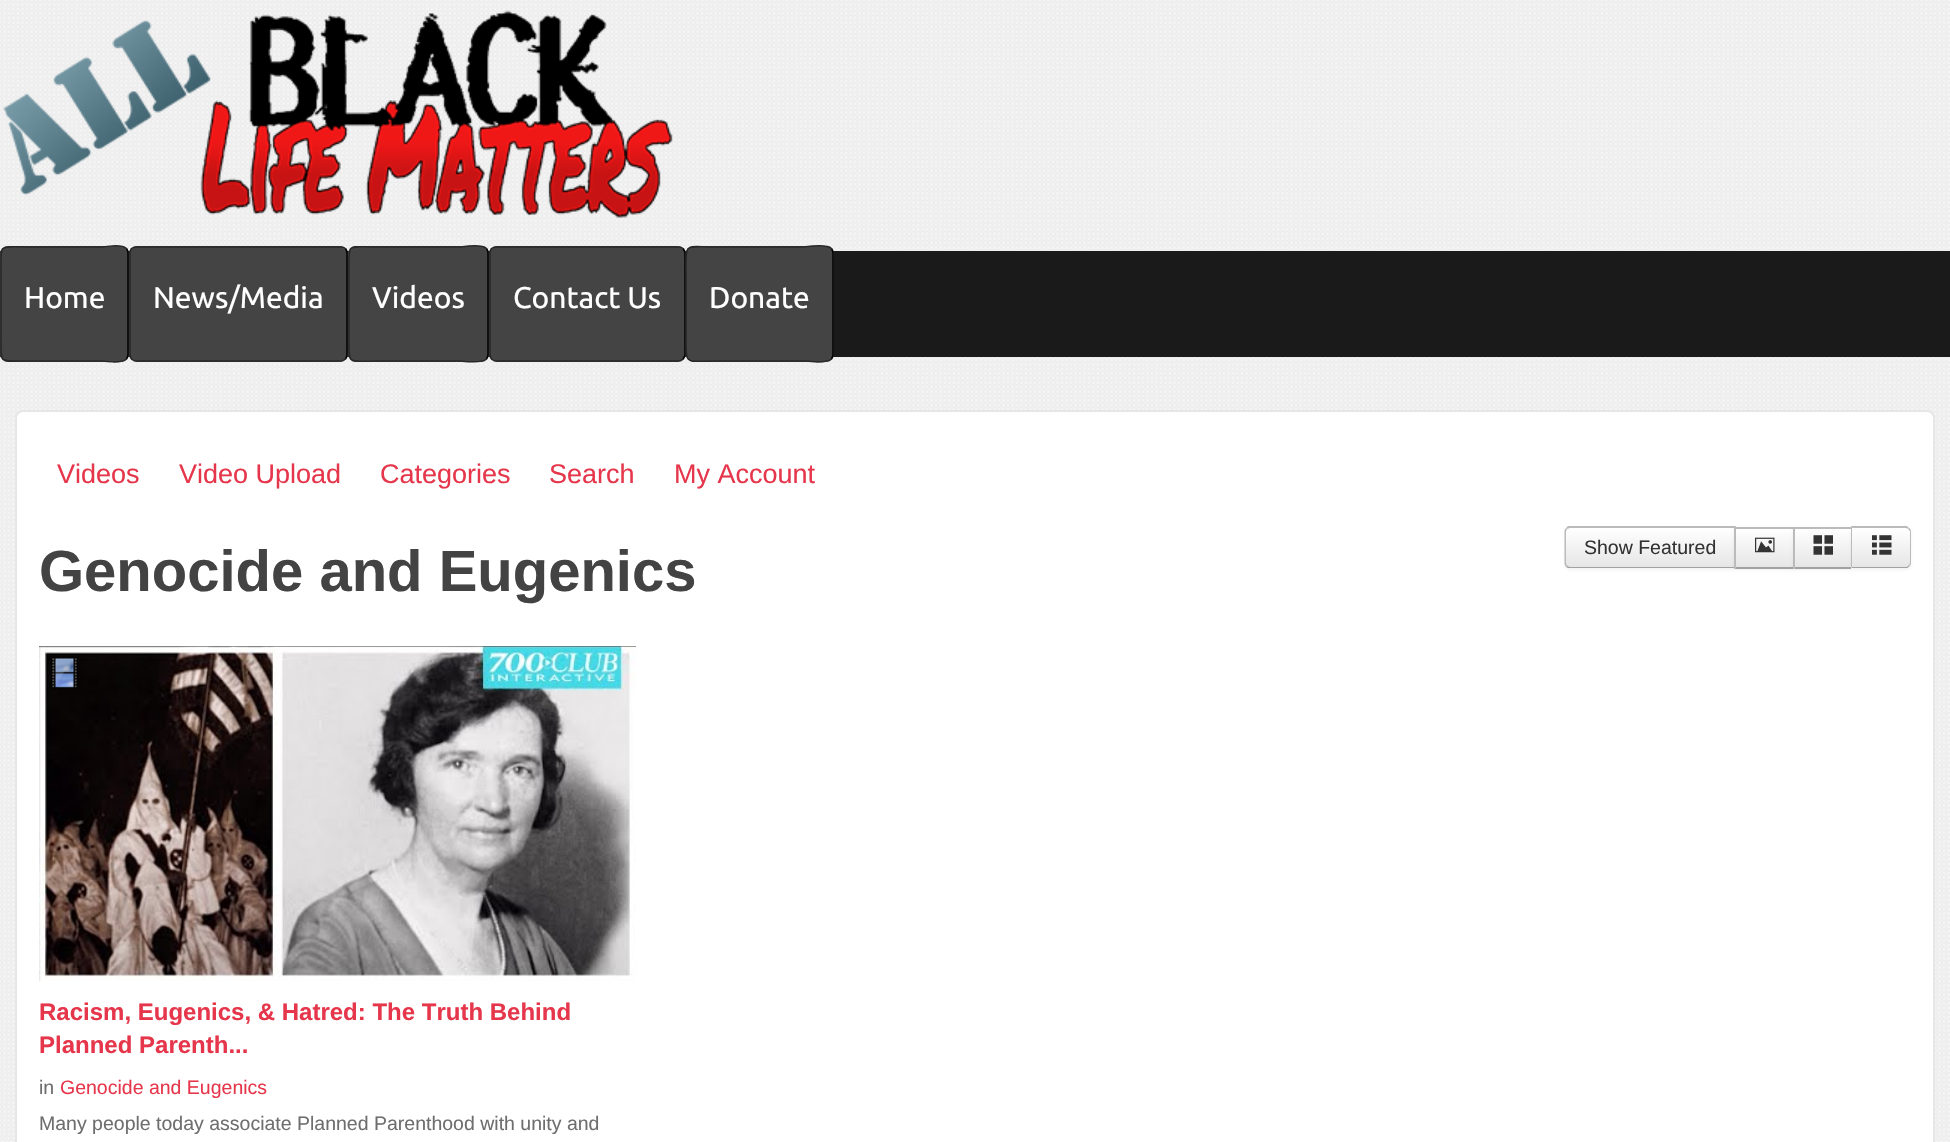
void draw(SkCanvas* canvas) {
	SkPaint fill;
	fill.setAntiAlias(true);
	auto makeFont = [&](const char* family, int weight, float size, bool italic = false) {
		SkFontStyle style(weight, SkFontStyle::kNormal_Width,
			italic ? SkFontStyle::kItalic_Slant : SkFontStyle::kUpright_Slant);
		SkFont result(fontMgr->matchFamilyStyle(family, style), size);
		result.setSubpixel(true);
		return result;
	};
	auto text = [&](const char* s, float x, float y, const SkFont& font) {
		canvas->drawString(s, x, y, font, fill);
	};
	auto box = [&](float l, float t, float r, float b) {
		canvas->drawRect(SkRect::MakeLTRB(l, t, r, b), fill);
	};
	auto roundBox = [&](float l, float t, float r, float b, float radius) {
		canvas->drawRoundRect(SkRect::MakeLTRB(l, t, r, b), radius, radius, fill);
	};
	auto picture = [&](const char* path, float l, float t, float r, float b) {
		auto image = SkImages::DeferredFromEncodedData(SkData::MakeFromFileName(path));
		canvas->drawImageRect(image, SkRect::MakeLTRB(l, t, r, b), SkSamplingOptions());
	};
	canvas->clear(0xFFF4F4F4);
	picture("image0.png", 0, 0, 1950, 1141);
	picture("image1.png", 3, 10, 673, 218);
	fill.setColor(0xFF1A1A1A);
	box(0, 251, 1950, 357);
	fill.setColor(0xFF444444);
	roundBox(0, 246, 129, 362, 8);
	fill.setStyle(SkPaint::kStroke_Style);
	fill.setStrokeWidth(1.5f);
	fill.setColor(0xFF000000);
	canvas->drawPath(SkPathBuilder().moveTo(126.5f, 248.5f).cubicTo(127.5f, 250, 128, 251.5f, 128, 253.5f).lineTo(128, 354).cubicTo(128, 356, 127.5f, 357.5f, 126.5f, 359).detach(), fill);
	fill.setColor(0xFF272727);
	canvas->drawPath(SkPathBuilder().moveTo(126.5f, 359).cubicTo(121.5f, 364, 102.5f, 361, 102.5f, 361).lineTo(26.5f, 361).cubicTo(-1.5f, 361, 1, 364.5f, 1, 337).lineTo(1, 270).cubicTo(1, 243, -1.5f, 247, 26.5f, 247).lineTo(102.5f, 247).cubicTo(102.5f, 247, 121.5f, 243.5f, 126.5f, 248.5f).detach(), fill);
	fill.setStyle(SkPaint::kFill_Style);
	fill.setColor(0xFF444444);
	roundBox(129, 246, 348, 362, 8);
	fill.setStyle(SkPaint::kStroke_Style);
	fill.setColor(0xFF000000);
	canvas->drawPath(SkPathBuilder().moveTo(345.5f, 248.5f).cubicTo(346.5f, 250, 347, 251.5f, 347, 253.5f).lineTo(347, 354).cubicTo(347, 356, 346.5f, 357.5f, 345.5f, 359).detach(), fill);
	fill.setColor(0xFF272727);
	canvas->drawPath(SkPathBuilder().moveTo(345.5f, 359).cubicTo(344, 360, 342.5f, 361, 340.5f, 361).lineTo(136.5f, 361).cubicTo(134.5f, 361, 133, 360, 131.5f, 359).cubicTo(130.5f, 357.5f, 130, 356, 130, 354).lineTo(130, 253.5f).cubicTo(130, 251.5f, 130.5f, 250, 131.5f, 248.5f).cubicTo(133, 247.5f, 134.5f, 247, 136.5f, 247).lineTo(340.5f, 247).cubicTo(342.5f, 247, 344, 247.5f, 345.5f, 248.5f).detach(), fill);
	fill.setStyle(SkPaint::kFill_Style);
	fill.setColor(0xFF444444);
	roundBox(348, 246, 489, 362, 8);
	fill.setStyle(SkPaint::kStroke_Style);
	fill.setColor(0xFF000000);
	canvas->drawPath(SkPathBuilder().moveTo(486.5f, 248.5f).cubicTo(487.5f, 250, 488, 251.5f, 488, 253.5f).lineTo(488, 354).cubicTo(488, 356, 487.5f, 357.5f, 486.5f, 359).detach(), fill);
	fill.setColor(0xFF272727);
	canvas->drawPath(SkPathBuilder().moveTo(486.5f, 359).cubicTo(481, 364, 462, 361, 460.5f, 361).lineTo(376.5f, 361).cubicTo(346.5f, 361, 349, 365.5f, 349, 337).lineTo(349, 270).cubicTo(349, 242, 346.5f, 247, 376.5f, 247).lineTo(460.5f, 247).cubicTo(462, 247, 481, 243.5f, 486.5f, 248.5f).detach(), fill);
	fill.setStyle(SkPaint::kFill_Style);
	fill.setColor(0xFF444444);
	roundBox(489, 246, 686, 362, 8);
	fill.setStyle(SkPaint::kStroke_Style);
	fill.setColor(0xFF000000);
	canvas->drawPath(SkPathBuilder().moveTo(683, 248.5f).cubicTo(684, 250, 685, 251.5f, 685, 253.5f).lineTo(685, 354).cubicTo(685, 356, 684, 357.5f, 683, 359).detach(), fill);
	fill.setColor(0xFF272727);
	canvas->drawPath(SkPathBuilder().moveTo(683, 359).cubicTo(681.5f, 360, 680, 361, 678, 361).lineTo(496.5f, 361).cubicTo(494.5f, 361, 493, 360, 491.5f, 359).cubicTo(490.5f, 357.5f, 490, 356, 490, 354).lineTo(490, 253.5f).cubicTo(490, 251.5f, 490.5f, 250, 491.5f, 248.5f).cubicTo(493, 247.5f, 494.5f, 247, 496.5f, 247).lineTo(678, 247).cubicTo(680, 247, 681.5f, 247.5f, 683, 248.5f).detach(), fill);
	fill.setStyle(SkPaint::kFill_Style);
	fill.setColor(0xFF444444);
	roundBox(686, 246, 834, 362, 8);
	fill.setStyle(SkPaint::kStroke_Style);
	fill.setColor(0xFF000000);
	canvas->drawPath(SkPathBuilder().moveTo(831.5f, 248.5f).cubicTo(832.5f, 250, 833, 251.5f, 833, 253.5f).lineTo(833, 354).cubicTo(833, 356, 832.5f, 357.5f, 831.5f, 359).detach(), fill);
	fill.setColor(0xFF272727);
	canvas->drawPath(SkPathBuilder().moveTo(831.5f, 359).cubicTo(826, 364, 805, 361, 804, 361).lineTo(715, 361).cubicTo(684.5f, 361, 686, 366, 686, 337).lineTo(686, 270).cubicTo(686, 241.5f, 684.5f, 247, 715, 247).lineTo(804, 247).cubicTo(805, 247, 826, 243.5f, 831.5f, 248.5f).detach(), fill);
	fill.setStyle(SkPaint::kFill_Style);
	fill.setColor(0xFFFFFFFF);
	canvas->drawRoundRect(SkRect::MakeLTRB(16, 411, 1934, 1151), 7, 7, fill);
	fill.setStyle(SkPaint::kStroke_Style);
	fill.setStrokeWidth(2);
	fill.setColor(0xFFE6E6E6);
	canvas->drawRoundRect(SkRect::MakeLTRB(16, 411, 1934, 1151), 7, 7, fill);
	fill.setStyle(SkPaint::kFill_Style);
	fill.setColor(0x0D000000);
	fill.setMaskFilter(SkMaskFilter::MakeBlur(kNormal_SkBlurStyle, 1.5f));
	canvas->drawRoundRect(SkRect::MakeLTRB(1565, 528, 1736, 570), 6, 6, fill);
	fill.setMaskFilter(nullptr);
	fill.setColor(0xFFF5F5F5);
	canvas->drawPath(SkPathBuilder().moveTo(1571, 527).lineTo(1736, 527).lineTo(1736, 569).lineTo(1571, 569).cubicTo(1567.5f, 569, 1565, 566.5f, 1565, 563).lineTo(1565, 533).cubicTo(1565, 529.5f, 1567.5f, 527, 1571, 527).close().detach(), fill);
	canvas->save();
	canvas->clipPath(SkPathBuilder().moveTo(1571, 527).lineTo(1736, 527).lineTo(1736, 569).lineTo(1571, 569).cubicTo(1567.5f, 569, 1565, 566.5f, 1565, 563).lineTo(1565, 533).cubicTo(1565, 529.5f, 1567.5f, 527, 1571, 527).close().detach(), true);
	{
		const SkColor colors[] = {0xFFFFFFFF, 0xFFE6E6E6};
		const float stops[] = {0, 1};
		const SkPoint ends[] = {{1650, 528}, {1650, 567}};
		fill.setShader(SkGradientShader::MakeLinear(ends, colors, stops, 2, SkTileMode::kClamp));
		fill.setAlpha(255);
	}
	box(1565, 528, 1734, 567);
	canvas->restore();
	fill.setShader(nullptr);
	fill.setColor(0xFFBBBBBB);
	canvas->drawPath(SkPathBuilder().moveTo(1570, 528).lineTo(1567, 529).lineTo(1566, 528).lineTo(1568, 526).lineTo(1736, 526).lineTo(1734, 528).close().detach(), fill);
	canvas->drawPath(SkPathBuilder().moveTo(1736, 526).lineTo(1736, 568).lineTo(1734, 567).lineTo(1734, 528).close().detach(), fill);
	fill.setColor(0xFFA2A2A2);
	canvas->drawPath(SkPathBuilder().moveTo(1735, 568).lineTo(1570, 568).cubicTo(1569, 568, 1567, 568, 1566, 567).lineTo(1567, 566).lineTo(1570, 567).lineTo(1734, 567).close().detach(), fill);
	fill.setColor(0xFFBBBBBB);
	canvas->drawPath(SkPathBuilder().moveTo(1564.5f, 530).lineTo(1566, 528).lineTo(1567, 529).cubicTo(1566.5f, 530, 1566, 531, 1566, 532).lineTo(1566, 562).cubicTo(1566, 563.5f, 1566.5f, 565, 1567.5f, 565.5f).lineTo(1566, 567).lineTo(1564.5f, 564.5f).close().detach(), fill);
	fill.setColor(0x0D000000);
	fill.setMaskFilter(SkMaskFilter::MakeBlur(kNormal_SkBlurStyle, 1.5f));
	canvas->drawRect(SkRect::MakeLTRB(1734, 528, 1794, 570), fill);
	fill.setMaskFilter(nullptr);
	{
		const SkColor colors[] = {0xFFFFFFFF, 0xFFE6E6E6};
		const float stops[] = {0, 1};
		const SkPoint ends[] = {{1764, 528}, {1764, 567}};
		fill.setShader(SkGradientShader::MakeLinear(ends, colors, stops, 2, SkTileMode::kClamp));
		fill.setAlpha(255);
	}
	box(1736, 529, 1793, 567);
	fill.setShader(nullptr);
	fill.setColor(0xFFBBBBBB);
	box(1734, 527, 1794, 529);
	fill.setColor(0xFFA2A2A2);
	box(1734, 567, 1794, 569);
	fill.setColor(0xFFBBBBBB);
	box(1734, 527, 1736, 569);
	picture("image2.png", 1755, 537, 1775, 553);
	fill.setColor(0x0D000000);
	fill.setMaskFilter(SkMaskFilter::MakeBlur(kNormal_SkBlurStyle, 1.5f));
	canvas->drawRect(SkRect::MakeLTRB(1793, 528, 1853, 570), fill);
	fill.setMaskFilter(nullptr);
	{
		const SkColor colors[] = {0xFFFFFFFF, 0xFFE6E6E6};
		const float stops[] = {0, 1};
		const SkPoint ends[] = {{1823, 528}, {1823, 567}};
		fill.setShader(SkGradientShader::MakeLinear(ends, colors, stops, 2, SkTileMode::kClamp));
		fill.setAlpha(255);
	}
	box(1795, 529, 1851, 567);
	fill.setShader(nullptr);
	fill.setColor(0xFFBBBBBB);
	box(1793, 527, 1853, 529);
	fill.setColor(0xFFA2A2A2);
	box(1793, 567, 1853, 569);
	fill.setColor(0xFFBBBBBB);
	box(1793, 527, 1795, 569);
	picture("image3.png", 1813, 535, 1833, 555);
	fill.setColor(0x0D000000);
	fill.setMaskFilter(SkMaskFilter::MakeBlur(kNormal_SkBlurStyle, 1.5f));
	canvas->drawRoundRect(SkRect::MakeLTRB(1851, 528, 1911, 570), 6, 6, fill);
	fill.setMaskFilter(nullptr);
	fill.setColor(0xFFF5F5F5);
	canvas->drawPath(SkPathBuilder().moveTo(1851, 527).lineTo(1905, 527).cubicTo(1908.5f, 527, 1911, 529.5f, 1911, 533).lineTo(1911, 563).cubicTo(1911, 566.5f, 1908.5f, 569, 1905, 569).lineTo(1851, 569).close().detach(), fill);
	canvas->save();
	canvas->clipPath(SkPathBuilder().moveTo(1851, 527).lineTo(1905, 527).cubicTo(1908.5f, 527, 1911, 529.5f, 1911, 533).lineTo(1911, 563).cubicTo(1911, 566.5f, 1908.5f, 569, 1905, 569).lineTo(1851, 569).close().detach(), true);
	{
		const SkColor colors[] = {0xFFFFFFFF, 0xFFE6E6E6};
		const float stops[] = {0, 1};
		const SkPoint ends[] = {{1881, 528}, {1881, 567}};
		fill.setShader(SkGradientShader::MakeLinear(ends, colors, stops, 2, SkTileMode::kClamp));
		fill.setAlpha(255);
	}
	box(1852, 528, 1911, 567);
	canvas->restore();
	fill.setShader(nullptr);
	fill.setColor(0xFFBBBBBB);
	canvas->drawPath(SkPathBuilder().moveTo(1851, 526).lineTo(1907, 526).lineTo(1909, 528).lineTo(1908, 529).cubicTo(1907, 528, 1906, 528, 1905, 528).lineTo(1852, 528).close().detach(), fill);
	canvas->drawPath(SkPathBuilder().moveTo(1911, 562).lineTo(1911, 532).cubicTo(1911, 530.5f, 1910.5f, 529, 1909.5f, 528).lineTo(1908, 529).cubicTo(1909, 530, 1910, 531, 1910, 532).lineTo(1910, 562).cubicTo(1910, 563.5f, 1909, 565, 1908, 565.5f).lineTo(1909, 566.5f).cubicTo(1910, 565.5f, 1911, 564, 1911, 562).close().detach(), fill);
	fill.setColor(0xFFA2A2A2);
	canvas->drawPath(SkPathBuilder().moveTo(1909, 567).cubicTo(1908, 568, 1906, 568, 1905, 568).lineTo(1852, 568).lineTo(1852, 567).lineTo(1905, 567).cubicTo(1906, 567, 1907, 567, 1908, 566).close().detach(), fill);
	fill.setColor(0xFFBBBBBB);
	canvas->drawPath(SkPathBuilder().moveTo(1852, 528).lineTo(1851, 526).lineTo(1851, 568).lineTo(1852, 567).close().detach(), fill);
	picture("image4.png", 1872, 535, 1892, 555);
	picture("image5.png", 39, 646, 636, 981);
	picture("image6.png", 51, 658, 78, 689);
	auto font1 = makeFont("Ubuntu", 400, 30);
	fill.setColor(0xFFFFFFFF);
	text("Home", 24, 308, font1);
	text("News/Media", 153, 308, font1);
	text("Videos", 372, 308, font1);
	text("Contact Us", 513, 308, font1);
	text("Donate", 709, 308, font1);
	auto font2 = makeFont("Liberation Sans", 400, 27);
	fill.setColor(0xFFE6364B);
	text("Videos", 57, 483, font2);
	text("Video Upload", 179, 483, font2);
	text("Categories", 380, 483, font2);
	text("Search", 549, 483, font2);
	text("My Account", 674, 483, font2);
	auto font3 = makeFont("Liberation Sans", 700, 58);
	fill.setColor(0xFF434343);
	text("Genocide and Eugenics", 39, 591, font3);
	auto font4 = makeFont("Liberation Sans", 400, 19.5f);
	fill.setColor(0xFF333333);
	text("Show Featured", 1584, 554, font4);
	auto font5 = makeFont("Liberation Sans", 700, 24);
	fill.setColor(0xFFE6364B);
	text("Racism, Eugenics, & Hatred: The Truth Behind", 39, 1020, font5);
	text("Planned Parenth...", 39, 1053, font5);
	fill.setColor(0xFF6E6E6E);
	text("in", 39, 1094, font4);
	fill.setColor(0xFFE6364B);
	text("Genocide and Eugenics", 60, 1094, font4);
	fill.setColor(0xFF6E6E6E);
	text("Many people today associate Planned Parenthood with unity and", 39, 1130, font4);
}
